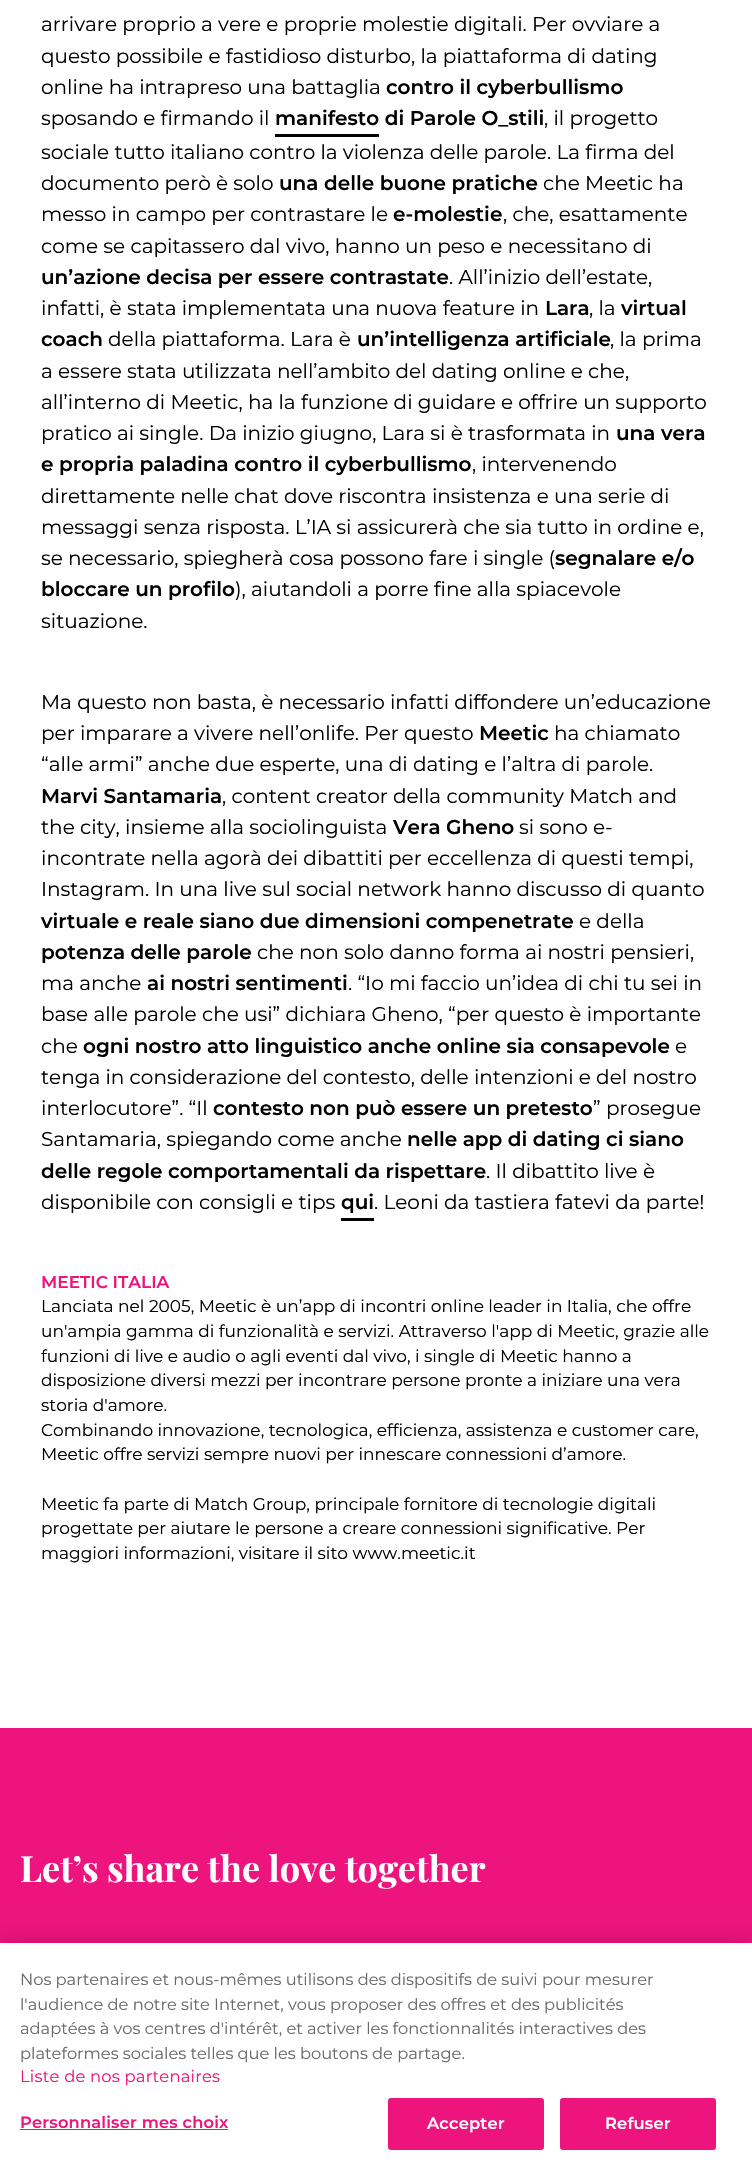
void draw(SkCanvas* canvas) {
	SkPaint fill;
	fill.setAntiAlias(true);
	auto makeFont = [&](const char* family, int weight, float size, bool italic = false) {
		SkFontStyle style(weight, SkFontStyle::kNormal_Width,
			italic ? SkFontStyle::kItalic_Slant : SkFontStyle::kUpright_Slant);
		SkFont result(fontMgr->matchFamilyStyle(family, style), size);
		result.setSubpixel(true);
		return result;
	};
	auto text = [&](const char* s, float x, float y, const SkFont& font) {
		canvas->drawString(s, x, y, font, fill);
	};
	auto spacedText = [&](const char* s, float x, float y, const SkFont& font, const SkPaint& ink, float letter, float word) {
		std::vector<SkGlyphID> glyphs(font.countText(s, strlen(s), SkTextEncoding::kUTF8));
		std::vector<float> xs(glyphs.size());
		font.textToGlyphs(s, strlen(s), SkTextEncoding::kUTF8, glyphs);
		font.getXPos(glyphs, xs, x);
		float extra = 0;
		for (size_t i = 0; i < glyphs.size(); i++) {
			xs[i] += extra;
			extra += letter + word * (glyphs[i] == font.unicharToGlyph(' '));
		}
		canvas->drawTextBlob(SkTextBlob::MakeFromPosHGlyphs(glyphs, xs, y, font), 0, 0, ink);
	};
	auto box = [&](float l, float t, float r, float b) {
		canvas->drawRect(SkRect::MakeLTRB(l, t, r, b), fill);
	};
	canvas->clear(0xFFED147D);
	fill.setColor(0xFFFFFFFF);
	box(0, 0, 752, 1728);
	fill.setColor(0xFF000000);
	box(275, 134, 379, 137);
	box(341, 1218, 374, 1221);
	fill.setColor(0x33000000);
	fill.setMaskFilter(SkMaskFilter::MakeBlur(kNormal_SkBlurStyle, 11));
	canvas->drawRect(SkRect::MakeLTRB(0, 1943, 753, 2175), fill);
	fill.setMaskFilter(nullptr);
	fill.setColor(0xFFFFFFFF);
	box(0, 1943, 752, 2175);
	fill.setColor(0xFFED147D);
	box(20, 2129, 228, 2130);
	canvas->drawRoundRect(SkRect::MakeLTRB(388.5f, 2098.5f, 543.5f, 2149.5f), 2, 2, fill);
	fill.setStyle(SkPaint::kStroke_Style);
	fill.setStrokeWidth(1);
	canvas->drawRoundRect(SkRect::MakeLTRB(388.5f, 2098.5f, 543.5f, 2149.5f), 2, 2, fill);
	fill.setStyle(SkPaint::kFill_Style);
	canvas->drawRoundRect(SkRect::MakeLTRB(560.5f, 2098.5f, 715.5f, 2149.5f), 2, 2, fill);
	fill.setStyle(SkPaint::kStroke_Style);
	canvas->drawRoundRect(SkRect::MakeLTRB(560.5f, 2098.5f, 715.5f, 2149.5f), 2, 2, fill);
	auto font1 = makeFont("Montserrat", 400, 20);
	fill.setStyle(SkPaint::kFill_Style);
	fill.setColor(0xFF000000);
	text("arrivare proprio a vere e proprie molestie digitali. Per ovviare a", 41, 31, font1);
	text("questo possibile e fastidioso disturbo, la piattaforma di dating", 41, 63, font1);
	text("online ha intrapreso una battaglia", 41, 94, font1);
	auto font2 = makeFont("Montserrat", 600, 20);
	text("contro il cyberbullismo", 386, 94, font2);
	text("sposando e firmando il", 41, 125, font1);
	text("manifesto di Parole O_stili", 275, 125, font2);
	text(", il progetto", 544, 125, font1);
	text("sociale tutto italiano contro la violenza delle parole. La firma del", 41, 159, font1);
	text("documento però è solo", 41, 190, font1);
	text("una delle buone pratiche", 279, 190, font2);
	text("che Meetic ha", 543, 190, font1);
	text("messo in campo per contrastare le", 41, 221, font1);
	text("e-molestie", 393, 221, font2);
	text(", che, esattamente", 503, 221, font1);
	text("come se capitassero dal vivo, hanno un peso e necessitano di", 41, 253, font1);
	text("un’azione decisa per essere contrastate", 41, 284, font2);
	text(". All’inizio dell’estate,", 449, 284, font1);
	text("infatti, è stata implementata una nuova feature in", 41, 315, font1);
	text("Lara", 545, 315, font2);
	text(", la", 589, 315, font1);
	text("virtual", 621, 315, font2);
	text("coach", 41, 346, font2);
	text("della piattaforma. Lara è", 108, 346, font1);
	text("un’intelligenza artificiale", 357, 346, font2);
	text(", la prima", 610, 346, font1);
	text("a essere stata utilizzata nell’ambito del dating online e che,", 41, 378, font1);
	text("all’interno di Meetic, ha la funzione di guidare e offrire un supporto", 41, 409, font1);
	text("pratico ai single. Da inizio giugno, Lara si è trasformata in", 41, 440, font1);
	text("una vera", 616, 440, font2);
	text("e propria paladina contro il cyberbullismo", 41, 471, font2);
	text(", intervenendo", 472, 471, font1);
	text("direttamente nelle chat dove riscontra insistenza e una serie di", 41, 503, font1);
	text("messaggi senza risposta. L’IA si assicurerà che sia tutto in ordine e,", 41, 534, font1);
	text("se necessario, spiegherà cosa possono fare i single (", 41, 565, font1);
	text("segnalare e/o", 555, 565, font2);
	text("bloccare un profilo", 41, 596, font2);
	text("), aiutandoli a porre fine alla spiacevole", 235, 596, font1);
	text("situazione.", 41, 628, font1);
	text("Ma questo non basta, è necessario infatti diffondere un’educazione", 41, 709, font1);
	text("per imparare a vivere nell’onlife. Per questo", 41, 740, font1);
	text("Meetic", 479, 740, font2);
	text("ha chiamato", 554, 740, font1);
	text("“alle armi” anche due esperte, una di dating e l’altra di parole.", 41, 771, font1);
	text("Marvi Santamaria", 41, 803, font2);
	text(", content creator della community Match and", 222, 803, font1);
	text("the city, insieme alla sociolinguista", 41, 834, font1);
	text("Vera Gheno", 393, 834, font2);
	text("si sono e-", 519, 834, font1);
	text("incontrate nella agorà dei dibattiti per eccellenza di questi tempi,", 41, 865, font1);
	text("Instagram. In una live sul social network hanno discusso di quanto", 41, 896, font1);
	text("virtuale e reale siano due dimensioni compenetrate", 41, 928, font2);
	text("e della", 579, 928, font1);
	text("potenza delle parole", 41, 959, font2);
	text("che non solo danno forma ai nostri pensieri,", 257, 959, font1);
	text("ma anche", 41, 990, font1);
	text("ai nostri sentimenti", 147, 990, font2);
	text(". “Io mi faccio un’idea di chi tu sei in", 348, 990, font1);
	text("base alle parole che usi” dichiara Gheno, “per questo è importante", 41, 1021, font1);
	text("che", 41, 1053, font1);
	text("ogni nostro atto linguistico anche online sia consapevole", 83, 1053, font2);
	text("e", 675, 1053, font1);
	text("tenga in considerazione del contesto, delle intenzioni e del nostro", 41, 1084, font1);
	text("interlocutore”. “Il", 41, 1115, font1);
	text("contesto non può essere un pretesto", 213, 1115, font2);
	text("” prosegue", 593, 1115, font1);
	text("Santamaria, spiegando come anche", 41, 1146, font1);
	text("nelle app di dating ci siano", 407, 1146, font2);
	text("delle regole comportamentali da rispettare", 41, 1178, font2);
	text(". Il dibattito live è", 486, 1178, font1);
	text("disponibile con consigli e tips", 41, 1209, font1);
	text("qui", 341, 1209, font2);
	text(". Leoni da tastiera fatevi da parte!", 374, 1209, font1);
	auto font3 = makeFont("Montserrat", 600, 17);
	fill.setColor(0xFFED147D);
	text("MEETIC ITALIA", 41, 1288, font3);
	auto font4 = makeFont("Montserrat", 400, 17);
	fill.setColor(0xFF000000);
	text("Lanciata nel 2005, Meetic è un’app di incontri online leader in Italia, che offre", 41, 1312, font4);
	text("un'ampia gamma di funzionalità e servizi. Attraverso l'app di Meetic, grazie alle", 41, 1337, font4);
	text("funzioni di live e audio o agli eventi dal vivo, i single di Meetic hanno a", 41, 1362, font4);
	text("disposizione diversi mezzi per incontrare persone pronte a iniziare una vera", 41, 1386, font4);
	text("storia d'amore.", 41, 1411, font4);
	text("Combinando innovazione, tecnologica, efficienza, assistenza e customer care,", 41, 1436, font4);
	text("Meetic offre servizi sempre nuovi per innescare connessioni d’amore.", 41, 1460, font4);
	text("Meetic fa parte di Match Group, principale fornitore di tecnologie digitali", 41, 1510, font4);
	text("progettate per aiutare le persone a creare connessioni significative. Per", 41, 1534, font4);
	text("maggiori informazioni, visitare il sito www.meetic.it", 41, 1559, font4);
	auto font5 = makeFont("Playfair Display", 700, 36);
	fill.setColor(0xFFFFFFFF);
	text("Let’s share the love together", 20, 1882, font5);
	auto font6 = makeFont("Montserrat", 400, 16.25f);
	fill.setColor(0xFF696969);
	text("Nos partenaires et nous-mêmes utilisons des dispositifs de suivi pour mesurer", 20, 1985, font6);
	text("l'audience de notre site Internet, vous proposer des offres et des publicités", 20, 2010, font6);
	text("adaptées à vos centres d'intérêt, et activer les fonctionnalités interactives des", 20, 2034, font6);
	text("plateformes sociales telles que les boutons de partage.", 20, 2059, font6);
	auto font7 = makeFont("Montserrat", 400, 16.4f);
	fill.setColor(0xFFED147D);
	spacedText("Liste de nos partenaires", 20, 2082, font7, fill, 0.2f, 0);
	auto font8 = makeFont("Montserrat", 600, 16.25f);
	spacedText("Personnaliser mes choix", 20, 2128, font8, fill, 0.2f, 0);
	fill.setColor(0xFFFFFFFF);
	spacedText("Accepter", 427, 2129, font8, fill, 0.2f, 0);
	spacedText("Refuser", 605, 2129, font8, fill, 0.2f, 0);
}
